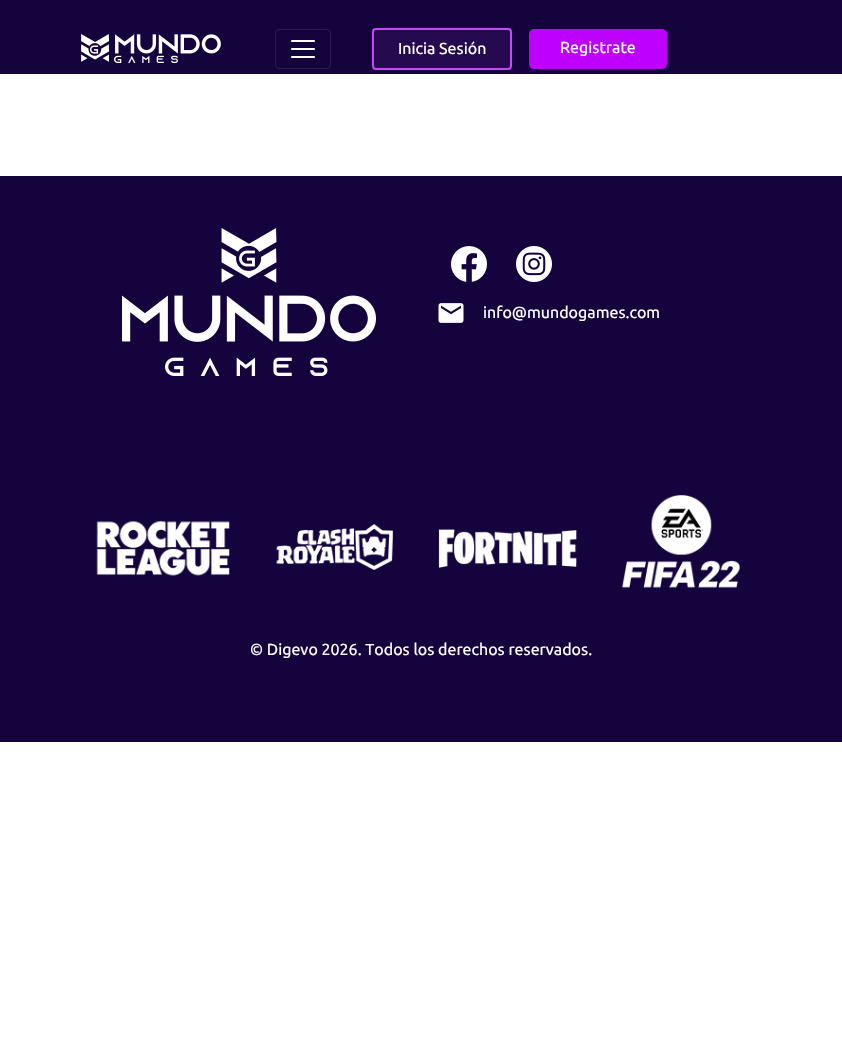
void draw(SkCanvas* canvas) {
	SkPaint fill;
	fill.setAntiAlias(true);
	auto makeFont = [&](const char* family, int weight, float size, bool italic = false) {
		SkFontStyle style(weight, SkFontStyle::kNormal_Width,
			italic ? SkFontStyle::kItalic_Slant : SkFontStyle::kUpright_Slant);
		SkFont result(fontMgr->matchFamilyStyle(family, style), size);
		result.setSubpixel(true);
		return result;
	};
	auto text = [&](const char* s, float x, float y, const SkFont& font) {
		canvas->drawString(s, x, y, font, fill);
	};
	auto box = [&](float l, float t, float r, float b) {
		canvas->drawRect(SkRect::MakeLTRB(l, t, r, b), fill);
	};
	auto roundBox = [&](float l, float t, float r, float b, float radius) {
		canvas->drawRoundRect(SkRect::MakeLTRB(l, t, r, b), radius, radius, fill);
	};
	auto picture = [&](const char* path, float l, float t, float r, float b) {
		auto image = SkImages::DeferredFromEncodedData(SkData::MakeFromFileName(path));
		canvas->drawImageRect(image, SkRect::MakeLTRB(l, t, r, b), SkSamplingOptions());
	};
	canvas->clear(0xFFFFFFFF);
	fill.setColor(0xFF14033D);
	box(0, 0, 842, 74);
	picture("image0.png", 81, 34, 221, 63);
	fill.setStyle(SkPaint::kStroke_Style);
	fill.setStrokeWidth(1);
	fill.setColor(0xFF2C1C50);
	canvas->drawRoundRect(SkRect::MakeLTRB(275.5f, 29.5f, 330.5f, 68.5f), 3.5f, 3.5f, fill);
	picture("image1.png", 291, 40, 315, 58);
	fill.setStyle(SkPaint::kFill_Style);
	fill.setColor(0xFF260A50);
	canvas->drawRoundRect(SkRect::MakeLTRB(373, 29, 511, 69), 3, 3, fill);
	fill.setStyle(SkPaint::kStroke_Style);
	fill.setStrokeWidth(2);
	fill.setColor(0xFFCC45FE);
	canvas->drawRoundRect(SkRect::MakeLTRB(373, 29, 511, 69), 3, 3, fill);
	fill.setStyle(SkPaint::kFill_Style);
	fill.setColor(0xFFBE00FE);
	roundBox(529, 29, 667, 69, 5);
	fill.setColor(0xFF14033D);
	box(0, 176, 842, 742);
	picture("image2.png", 122, 228, 376, 376);
	picture("image3.png", 451, 246, 487, 282);
	picture("image4.png", 516, 246, 552, 282);
	picture("image5.png", 438, 303, 464, 323);
	picture("image6.png", 96, 520, 230, 576);
	picture("image7.png", 276, 524, 393, 570);
	picture("image8.png", 438, 529, 578, 568);
	picture("image9.png", 622, 495, 740, 588);
	auto font1 = makeFont("Ubuntu", 400, 16);
	fill.setColor(0xFFFFFFFF);
	text("Inicia Sesión", 398, 54, font1);
	text("Registrate", 560, 53, font1);
	text("info@mundogames.com", 483, 318, font1);
	text("© Digevo 2026. Todos los derechos reservados.", 250, 655, font1);
}
